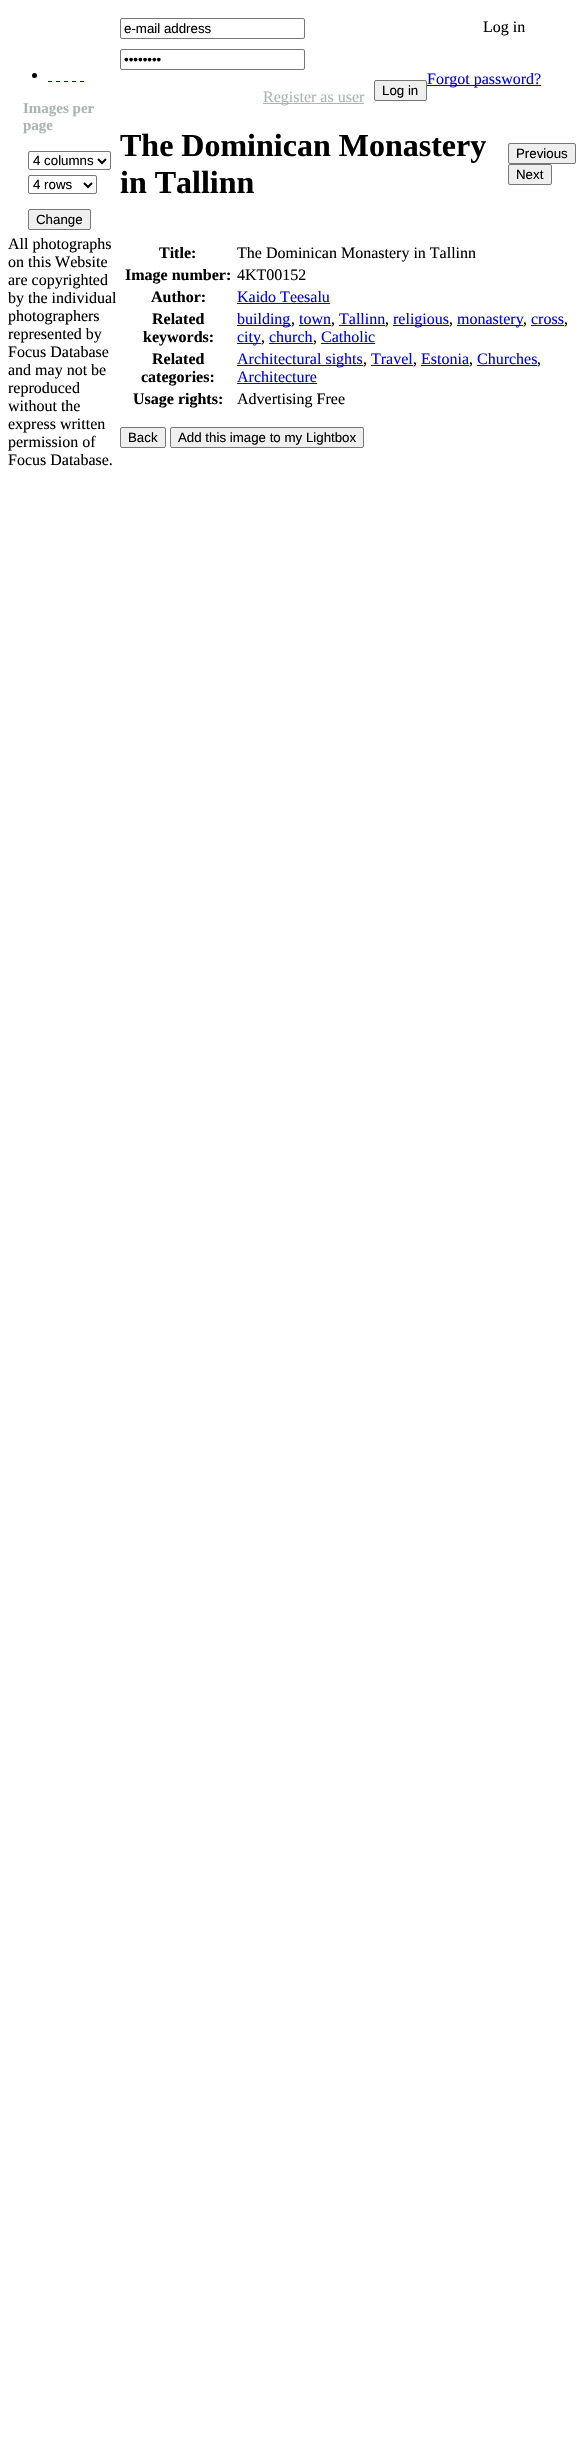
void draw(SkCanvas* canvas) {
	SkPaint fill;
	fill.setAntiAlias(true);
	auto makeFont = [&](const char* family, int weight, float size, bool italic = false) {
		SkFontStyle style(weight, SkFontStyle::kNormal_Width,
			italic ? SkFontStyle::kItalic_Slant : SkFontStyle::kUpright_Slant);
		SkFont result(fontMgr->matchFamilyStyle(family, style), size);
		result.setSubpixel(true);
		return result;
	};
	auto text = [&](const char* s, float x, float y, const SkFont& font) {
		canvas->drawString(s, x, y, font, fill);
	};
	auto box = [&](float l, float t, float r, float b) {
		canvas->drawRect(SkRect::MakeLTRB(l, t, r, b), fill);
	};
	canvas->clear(0xFFFFFFFF);
	fill.setColor(0xFF000000);
	canvas->drawCircle(34.5f, 75.5f, 2.5f, fill);
	fill.setColor(0xFF0000EE);
	box(48, 81, 52, 82);
	box(56, 81, 60, 82);
	box(64, 81, 68, 82);
	box(72, 81, 76, 82);
	box(80, 81, 84, 82);
	fill.setStyle(SkPaint::kStroke_Style);
	fill.setStrokeWidth(1);
	fill.setColor(0xFF767676);
	canvas->drawRoundRect(SkRect::MakeLTRB(28.5f, 151.5f, 110.5f, 169.5f), 1.5f, 1.5f, fill);
	fill.setStrokeWidth(2);
	fill.setColor(0xFF000000);
	canvas->drawPath(SkPathBuilder().moveTo(98, 159).lineTo(102, 163).lineTo(106, 159).detach(), fill);
	fill.setStrokeWidth(1);
	fill.setColor(0xFF767676);
	canvas->drawRoundRect(SkRect::MakeLTRB(28.5f, 175.5f, 96.5f, 193.5f), 1.5f, 1.5f, fill);
	fill.setStrokeWidth(2);
	fill.setColor(0xFF000000);
	canvas->drawPath(SkPathBuilder().moveTo(84, 183).lineTo(88, 187).lineTo(92, 183).detach(), fill);
	fill.setStyle(SkPaint::kFill_Style);
	fill.setColor(0xFFEFEFEF);
	canvas->drawRoundRect(SkRect::MakeLTRB(28.5f, 209.5f, 90.5f, 229.5f), 1.5f, 1.5f, fill);
	fill.setStyle(SkPaint::kStroke_Style);
	fill.setStrokeWidth(1);
	fill.setColor(0xFF767676);
	canvas->drawRoundRect(SkRect::MakeLTRB(28.5f, 209.5f, 90.5f, 229.5f), 1.5f, 1.5f, fill);
	canvas->drawRoundRect(SkRect::MakeLTRB(120.5f, 18.5f, 304.5f, 38.5f), 1.5f, 1.5f, fill);
	canvas->drawRoundRect(SkRect::MakeLTRB(120.5f, 49.5f, 304.5f, 69.5f), 1.5f, 1.5f, fill);
	fill.setStyle(SkPaint::kFill_Style);
	fill.setColor(0xFF0000EE);
	box(427, 85, 541, 86);
	fill.setColor(0xFFEFEFEF);
	canvas->drawRoundRect(SkRect::MakeLTRB(374.5f, 80.5f, 426.5f, 100.5f), 1.5f, 1.5f, fill);
	fill.setStyle(SkPaint::kStroke_Style);
	fill.setColor(0xFF767676);
	canvas->drawRoundRect(SkRect::MakeLTRB(374.5f, 80.5f, 426.5f, 100.5f), 1.5f, 1.5f, fill);
	fill.setStyle(SkPaint::kFill_Style);
	fill.setColor(0xFFABB5B6);
	box(263, 103, 364, 104);
	fill.setColor(0xFFEFEFEF);
	canvas->drawRoundRect(SkRect::MakeLTRB(508.5f, 143.5f, 575.5f, 163.5f), 1.5f, 1.5f, fill);
	fill.setStyle(SkPaint::kStroke_Style);
	fill.setColor(0xFF767676);
	canvas->drawRoundRect(SkRect::MakeLTRB(508.5f, 143.5f, 575.5f, 163.5f), 1.5f, 1.5f, fill);
	fill.setStyle(SkPaint::kFill_Style);
	fill.setColor(0xFFEFEFEF);
	canvas->drawRoundRect(SkRect::MakeLTRB(508.5f, 164.5f, 551.5f, 184.5f), 1.5f, 1.5f, fill);
	fill.setStyle(SkPaint::kStroke_Style);
	fill.setColor(0xFF767676);
	canvas->drawRoundRect(SkRect::MakeLTRB(508.5f, 164.5f, 551.5f, 184.5f), 1.5f, 1.5f, fill);
	fill.setStyle(SkPaint::kFill_Style);
	fill.setColor(0xFF0000EE);
	box(237, 303, 330, 304);
	box(237, 325, 291, 326);
	box(299, 325, 331, 326);
	box(339, 325, 385, 326);
	box(393, 325, 449, 326);
	box(457, 325, 523, 326);
	box(531, 325, 564, 326);
	box(237, 343, 261, 344);
	box(269, 343, 313, 344);
	box(321, 343, 375, 344);
	box(237, 365, 363, 366);
	box(371, 365, 413, 366);
	box(421, 365, 469, 366);
	box(477, 365, 537, 366);
	box(237, 383, 317, 384);
	fill.setColor(0xFFEFEFEF);
	canvas->drawRoundRect(SkRect::MakeLTRB(120.5f, 427.5f, 165.5f, 447.5f), 1.5f, 1.5f, fill);
	fill.setStyle(SkPaint::kStroke_Style);
	fill.setColor(0xFF767676);
	canvas->drawRoundRect(SkRect::MakeLTRB(120.5f, 427.5f, 165.5f, 447.5f), 1.5f, 1.5f, fill);
	fill.setStyle(SkPaint::kFill_Style);
	fill.setColor(0xFFEFEFEF);
	canvas->drawRoundRect(SkRect::MakeLTRB(170.5f, 427.5f, 363.5f, 447.5f), 1.5f, 1.5f, fill);
	fill.setStyle(SkPaint::kStroke_Style);
	fill.setColor(0xFF767676);
	canvas->drawRoundRect(SkRect::MakeLTRB(170.5f, 427.5f, 363.5f, 447.5f), 1.5f, 1.5f, fill);
	auto font1 = makeFont("Liberation Serif", 700, 15);
	fill.setStyle(SkPaint::kFill_Style);
	fill.setColor(0xFFABB5B6);
	text("Images per", 23, 113, font1);
	text("page", 23, 130, font1);
	auto font2 = makeFont("Liberation Sans", 400, 13.3f);
	fill.setColor(0xFF000000);
	text("4 columns", 33, 165, font2);
	text("4 rows", 33, 189, font2);
	text("Change", 36, 224, font2);
	auto font3 = makeFont("Liberation Serif", 400, 16);
	text("All photographs", 8, 249, font3);
	text("on this Website", 8, 267, font3);
	text("are copyrighted", 8, 285, font3);
	text("by the individual", 8, 303, font3);
	text("photographers", 8, 321, font3);
	text("represented by", 8, 339, font3);
	text("Focus Database", 8, 357, font3);
	text("and may not be", 8, 375, font3);
	text("reproduced", 8, 393, font3);
	text("without the", 8, 411, font3);
	text("express written", 8, 429, font3);
	text("permission of", 8, 447, font3);
	text("Focus Database.", 8, 465, font3);
	text("Log in", 483, 32, font3);
	text("e-mail address", 124, 33, font2);
	text("••••••••", 124, 64, font2);
	fill.setColor(0xFF0000EE);
	text("Forgot password?", 427, 84, font3);
	fill.setColor(0xFF000000);
	text("Log in", 382, 95, font2);
	fill.setColor(0xFFABB5B6);
	text("Register as user", 263, 102, font3);
	auto font4 = makeFont("Liberation Serif", 700, 32);
	fill.setColor(0xFF000000);
	text("The Dominican Monastery", 120, 156, font4);
	text("in Tallinn", 120, 193, font4);
	text("Previous", 516, 158, font2);
	text("Next", 516, 179, font2);
	auto font5 = makeFont("Liberation Serif", 700, 16);
	text("Title:", 159, 258, font5);
	text("The Dominican Monastery in Tallinn", 237, 258, font3);
	text("Image number:", 125, 280, font5);
	text("4KT00152", 237, 280, font3);
	text("Author:", 151, 302, font5);
	fill.setColor(0xFF0000EE);
	text("Kaido Teesalu", 237, 302, font3);
	fill.setColor(0xFF000000);
	text("Related", 152, 324, font5);
	text("keywords:", 143, 342, font5);
	fill.setColor(0xFF0000EE);
	text("building", 237, 324, font3);
	fill.setColor(0xFF000000);
	text(",", 291, 324, font3);
	fill.setColor(0xFF0000EE);
	text("town", 299, 324, font3);
	fill.setColor(0xFF000000);
	text(",", 331, 324, font3);
	fill.setColor(0xFF0000EE);
	text("Tallinn", 339, 324, font3);
	fill.setColor(0xFF000000);
	text(",", 385, 324, font3);
	fill.setColor(0xFF0000EE);
	text("religious", 393, 324, font3);
	fill.setColor(0xFF000000);
	text(",", 449, 324, font3);
	fill.setColor(0xFF0000EE);
	text("monastery", 457, 324, font3);
	fill.setColor(0xFF000000);
	text(",", 523, 324, font3);
	fill.setColor(0xFF0000EE);
	text("cross", 531, 324, font3);
	fill.setColor(0xFF000000);
	text(",", 564, 324, font3);
	fill.setColor(0xFF0000EE);
	text("city", 237, 342, font3);
	fill.setColor(0xFF000000);
	text(",", 261, 342, font3);
	fill.setColor(0xFF0000EE);
	text("church", 269, 342, font3);
	fill.setColor(0xFF000000);
	text(",", 313, 342, font3);
	fill.setColor(0xFF0000EE);
	text("Catholic", 321, 342, font3);
	fill.setColor(0xFF000000);
	text("Related", 152, 364, font5);
	text("categories:", 141, 382, font5);
	fill.setColor(0xFF0000EE);
	text("Architectural sights", 237, 364, font3);
	fill.setColor(0xFF000000);
	text(",", 363, 364, font3);
	fill.setColor(0xFF0000EE);
	text("Travel", 371, 364, font3);
	fill.setColor(0xFF000000);
	text(",", 413, 364, font3);
	fill.setColor(0xFF0000EE);
	text("Estonia", 421, 364, font3);
	fill.setColor(0xFF000000);
	text(",", 469, 364, font3);
	fill.setColor(0xFF0000EE);
	text("Churches", 477, 364, font3);
	fill.setColor(0xFF000000);
	text(",", 537, 364, font3);
	fill.setColor(0xFF0000EE);
	text("Architecture", 237, 382, font3);
	fill.setColor(0xFF000000);
	text("Usage rights:", 133, 404, font5);
	text("Advertising Free", 237, 404, font3);
	text("Back", 128, 442, font2);
	text("Add this image to my Lightbox", 178, 442, font2);
}
